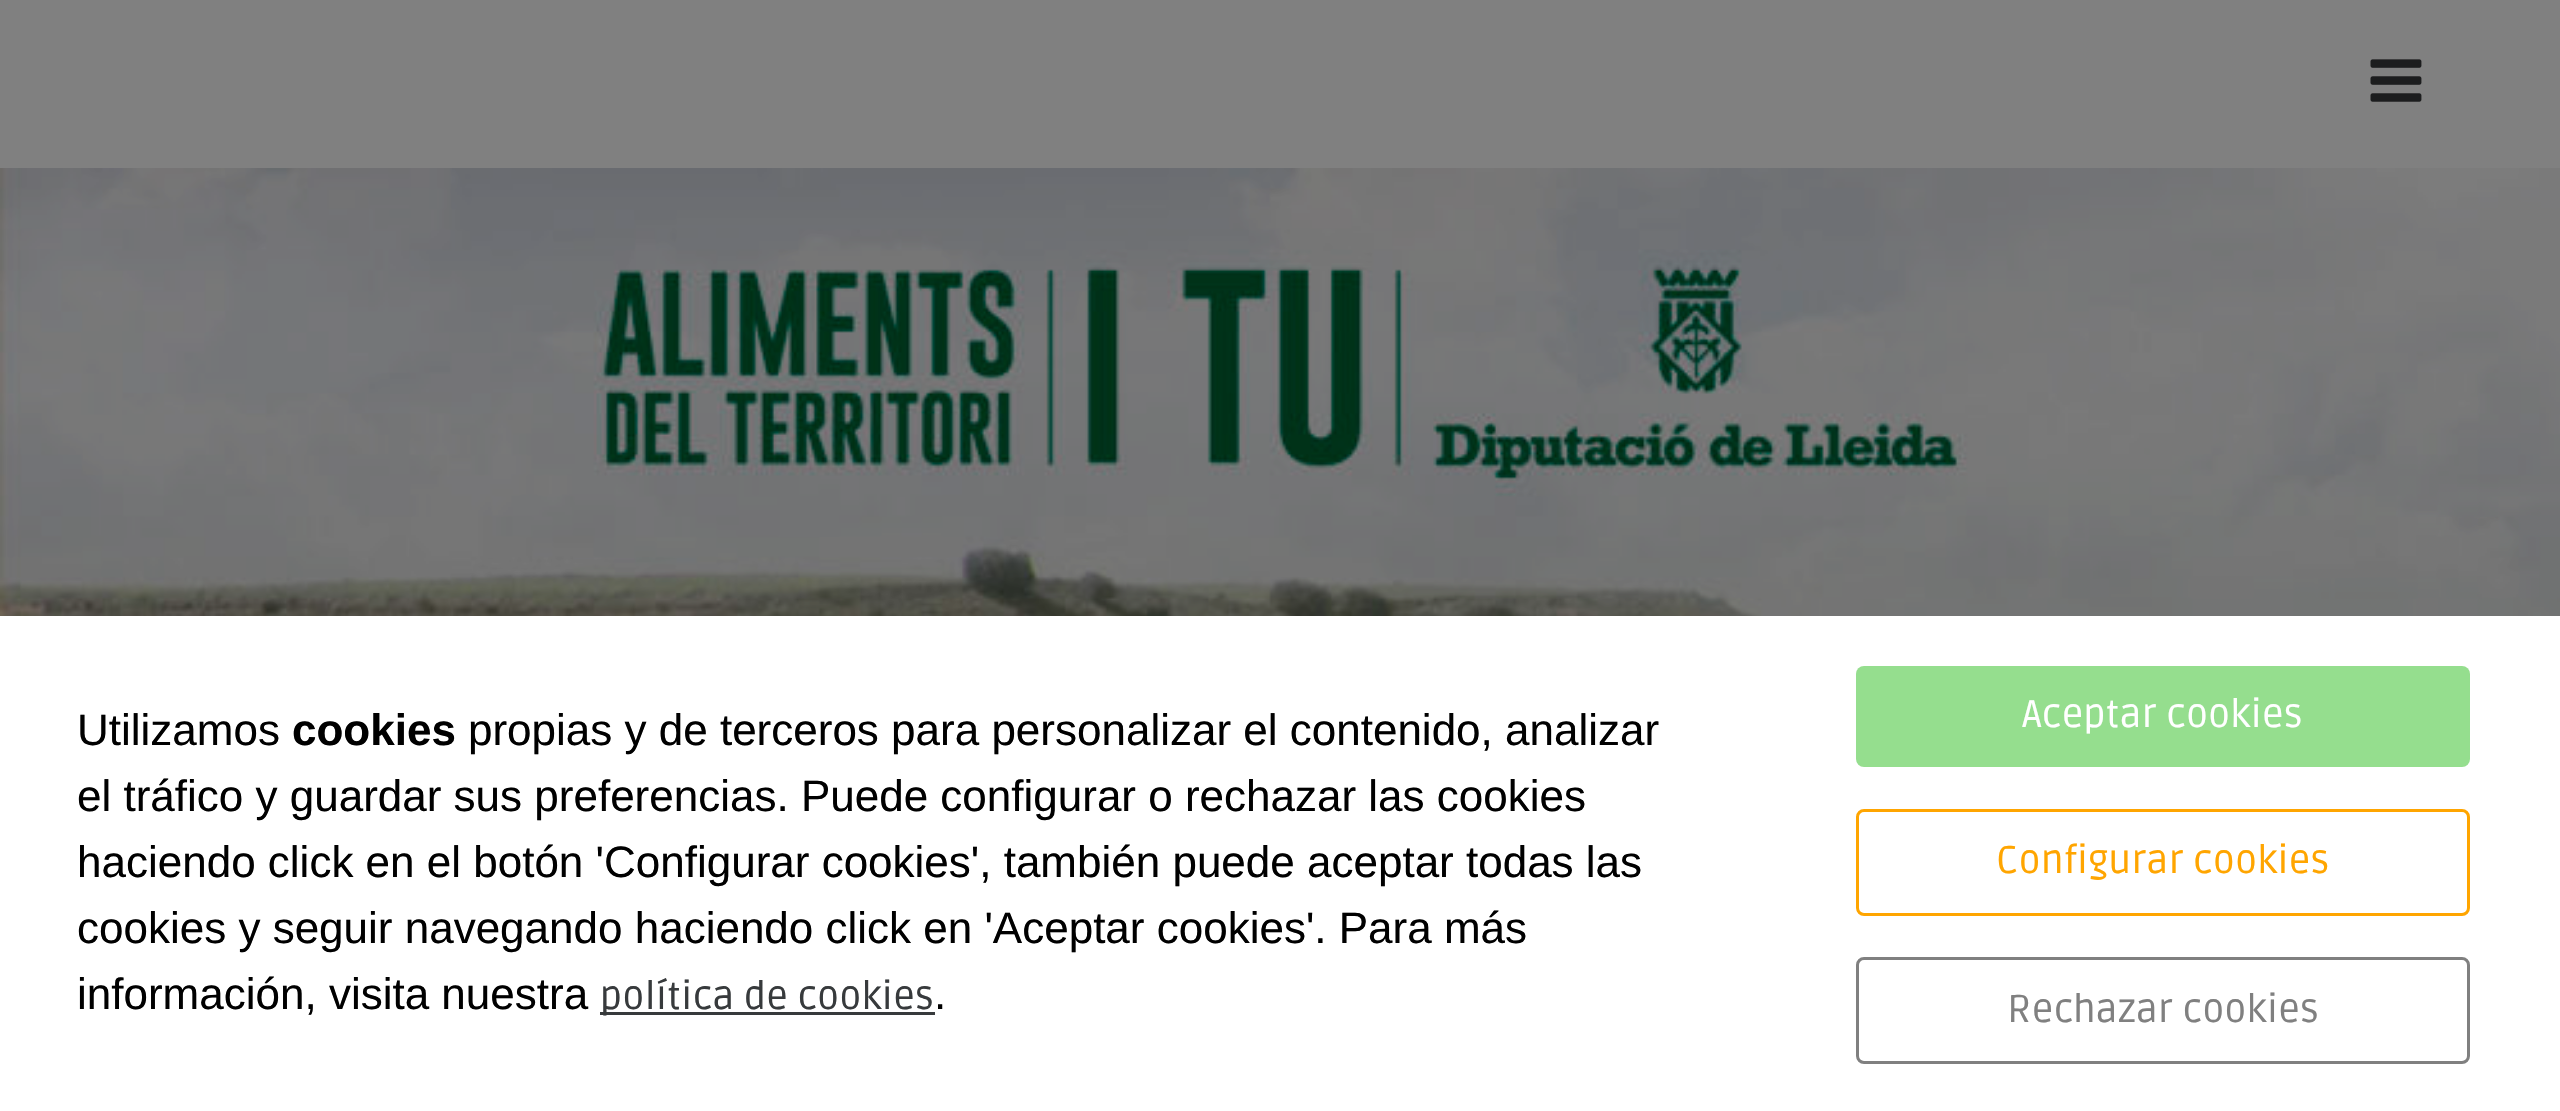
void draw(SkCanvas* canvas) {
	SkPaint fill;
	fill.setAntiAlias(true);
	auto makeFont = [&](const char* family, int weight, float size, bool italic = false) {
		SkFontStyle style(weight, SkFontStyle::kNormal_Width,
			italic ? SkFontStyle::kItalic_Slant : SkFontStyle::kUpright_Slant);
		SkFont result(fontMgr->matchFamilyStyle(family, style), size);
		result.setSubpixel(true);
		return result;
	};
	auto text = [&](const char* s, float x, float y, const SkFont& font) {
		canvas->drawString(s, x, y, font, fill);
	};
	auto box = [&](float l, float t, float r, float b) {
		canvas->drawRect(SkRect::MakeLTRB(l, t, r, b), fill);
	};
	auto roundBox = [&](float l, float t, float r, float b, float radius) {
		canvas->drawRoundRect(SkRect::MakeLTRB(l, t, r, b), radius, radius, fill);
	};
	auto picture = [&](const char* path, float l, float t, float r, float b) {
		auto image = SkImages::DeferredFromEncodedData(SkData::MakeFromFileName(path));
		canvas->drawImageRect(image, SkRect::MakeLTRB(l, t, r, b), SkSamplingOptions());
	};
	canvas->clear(0xFF808080);
	picture("image0.png", 2370, 59, 2422, 102);
	picture("image1.png", 0, 168, 2560, 616);
	fill.setColor(0xFFFFFFFF);
	box(0, 616, 2560, 1111);
	fill.setColor(0xFF373A3C);
	box(600, 1012, 935, 1015);
	fill.setColor(0xFF95DE8E);
	roundBox(1856, 666, 2470, 767, 8);
	fill.setStyle(SkPaint::kStroke_Style);
	fill.setStrokeWidth(3);
	fill.setColor(0xFFFFA500);
	canvas->drawRoundRect(SkRect::MakeLTRB(1857.5f, 810.5f, 2468.5f, 914.5f), 6.5f, 6.5f, fill);
	fill.setColor(0xFF808080);
	canvas->drawRoundRect(SkRect::MakeLTRB(1857.5f, 958.5f, 2468.5f, 1062.5f), 6.5f, 6.5f, fill);
	auto font1 = makeFont("Liberation Sans", 400, 44);
	fill.setStyle(SkPaint::kFill_Style);
	fill.setColor(0xFF000000);
	text("Utilizamos", 77, 745, font1);
	auto font2 = makeFont("Liberation Sans", 700, 44);
	text("cookies", 292, 745, font2);
	text("propias y de terceros para personalizar el contenido, analizar", 468, 745, font1);
	text("el tráfico y guardar sus preferencias. Puede configurar o rechazar las cookies", 77, 811, font1);
	text("haciendo click en el botón 'Configurar cookies', también puede aceptar todas las", 77, 877, font1);
	text("cookies y seguir navegando haciendo click en 'Aceptar cookies'. Para más", 77, 943, font1);
	text("información, visita nuestra", 77, 1009, font1);
	auto font3 = makeFont("Ruda", 400, 38.5f);
	fill.setColor(0xFF373A3C);
	text("política de cookies", 600, 1009, font3);
	fill.setColor(0xFF000000);
	text(".", 934, 1009, font1);
	fill.setColor(0xFFFFFFFF);
	text("Aceptar cookies", 2022, 727, font3);
	fill.setColor(0xFFFFA500);
	text("Configurar cookies", 1996, 873, font3);
	fill.setColor(0xFF808080);
	text("Rechazar cookies", 2007, 1022, font3);
}
